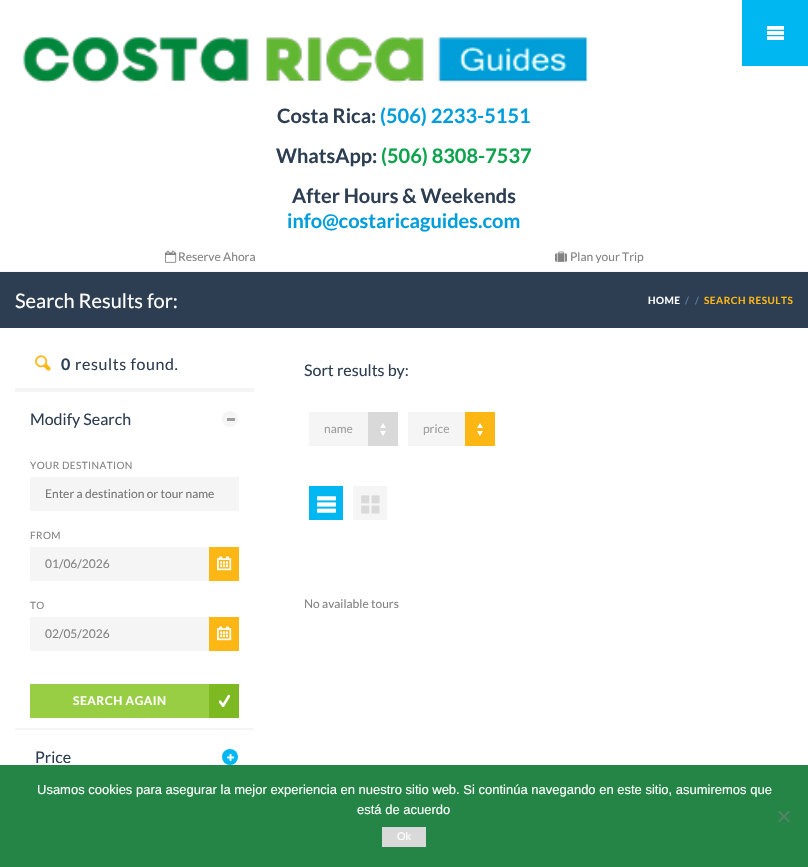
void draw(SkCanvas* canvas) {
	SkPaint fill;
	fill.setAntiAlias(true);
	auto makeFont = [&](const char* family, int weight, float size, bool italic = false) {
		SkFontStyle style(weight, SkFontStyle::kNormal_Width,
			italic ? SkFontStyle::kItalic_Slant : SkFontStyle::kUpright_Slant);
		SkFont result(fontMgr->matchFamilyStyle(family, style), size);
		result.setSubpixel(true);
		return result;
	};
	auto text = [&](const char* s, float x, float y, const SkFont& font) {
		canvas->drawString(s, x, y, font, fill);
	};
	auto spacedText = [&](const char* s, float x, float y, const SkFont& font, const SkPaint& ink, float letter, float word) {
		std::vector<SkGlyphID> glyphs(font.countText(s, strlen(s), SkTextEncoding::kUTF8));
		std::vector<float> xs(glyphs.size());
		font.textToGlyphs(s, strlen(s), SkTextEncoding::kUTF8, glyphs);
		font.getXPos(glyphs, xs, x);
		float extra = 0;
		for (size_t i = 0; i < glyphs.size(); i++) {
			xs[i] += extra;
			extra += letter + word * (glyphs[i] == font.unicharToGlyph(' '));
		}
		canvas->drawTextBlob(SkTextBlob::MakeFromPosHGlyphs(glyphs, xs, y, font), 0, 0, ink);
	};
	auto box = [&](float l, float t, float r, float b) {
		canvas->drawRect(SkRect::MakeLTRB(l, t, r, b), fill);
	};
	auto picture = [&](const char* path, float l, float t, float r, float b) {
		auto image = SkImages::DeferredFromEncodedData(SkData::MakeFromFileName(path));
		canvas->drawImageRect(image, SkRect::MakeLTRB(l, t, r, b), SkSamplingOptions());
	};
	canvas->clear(0xFFFFFFFF);
	fill.setColor(0xFF01B7F2);
	box(742, 0, 808, 66);
	picture("image0.png", 767, 26, 784, 40);
	picture("image1.png", 23, 37, 589, 83);
	picture("image2.png", 165, 250, 177, 263);
	picture("image3.png", 555, 251, 567, 262);
	fill.setColor(0xFFF5F5F5);
	box(0, 271, 808, 272);
	fill.setColor(0xFF2D3E52);
	box(0, 272, 808, 328);
	fill.setColor(0xFFF5F5F5);
	box(15, 388, 254, 392);
	picture("image4.png", 35, 355, 51, 371);
	box(15, 728, 254, 730);
	canvas->drawCircle(230, 419, 8, fill);
	fill.setColor(0xFF9E9E9E);
	box(227, 418, 235, 421);
	fill.setColor(0xFFF5F5F5);
	box(30, 477, 239, 511);
	box(30, 547, 209, 581);
	fill.setColor(0xFFFDB714);
	box(209, 547, 239, 581);
	picture("image5.png", 217, 556, 232, 571);
	fill.setColor(0xFFF5F5F5);
	box(30, 617, 209, 651);
	fill.setColor(0xFFFDB714);
	box(209, 617, 239, 651);
	picture("image5.png", 217, 626, 232, 641);
	fill.setColor(0xFF98CE44);
	box(30, 684, 209, 718);
	fill.setColor(0xFF7DB921);
	box(209, 684, 239, 718);
	picture("image6.png", 218, 694, 230, 707);
	fill.setColor(0xFF01B7F2);
	canvas->drawCircle(230, 757, 8, fill);
	picture("image7.png", 227, 753, 235, 761);
	fill.setColor(0xFFF5F5F5);
	box(309, 412, 368, 446);
	fill.setColor(0xFFD9D9D9);
	box(368, 412, 398, 446);
	fill.setColor(0xFFFFFFFF);
	canvas->drawPath(SkPathBuilder().moveTo(386, 428).lineTo(380, 428).lineTo(383, 423).close().moveTo(380, 431).lineTo(386, 431).lineTo(383, 436).close().detach(), fill);
	fill.setColor(0xFFF5F5F5);
	box(408, 412, 465, 446);
	fill.setColor(0xFFFDB714);
	box(465, 412, 495, 446);
	fill.setColor(0xFFFFFFFF);
	canvas->drawPath(SkPathBuilder().moveTo(483, 428).lineTo(477, 428).lineTo(480, 423).close().moveTo(477, 431).lineTo(483, 431).lineTo(480, 436).close().detach(), fill);
	fill.setColor(0xFF01B7F2);
	box(309, 486, 343, 520);
	picture("image8.png", 317, 496, 336, 513);
	fill.setColor(0xFFF5F5F5);
	box(353, 486, 387, 520);
	picture("image9.png", 361, 495, 380, 514);
	fill.setColor(0xFF248546);
	box(0, 765, 808, 867);
	fill.setColor(0xFF528363);
	canvas->drawPath(SkPathBuilder().moveTo(788.5f, 810.5f).lineTo(790, 812).lineTo(779.5f, 822.5f).lineTo(778, 821).close().detach(), fill);
	canvas->drawPath(SkPathBuilder().moveTo(778, 812).lineTo(779.5f, 810.5f).lineTo(790, 821).lineTo(788.5f, 822.5f).close().detach(), fill);
	fill.setColor(0xFFD9D9D9);
	box(382, 827, 426, 847);
	auto font1 = makeFont("Lato", 700, 20);
	fill.setColor(0xFF2D3E52);
	text("Costa Rica:", 277, 123, font1);
	fill.setColor(0xFF009DDC);
	text("(506) 2233-5151", 380, 123, font1);
	fill.setColor(0xFF2D3E52);
	text("WhatsApp:", 276, 163, font1);
	fill.setColor(0xFF0BA34C);
	text("(506) 8308-7537", 381, 163, font1);
	fill.setColor(0xFF2D3E52);
	text("After Hours & Weekends", 292, 203, font1);
	fill.setColor(0xFF009DDC);
	text("info@costaricaguides.com", 287, 228, font1);
	auto font2 = makeFont("Lato", 400, 12);
	fill.setColor(0xFF838383);
	text("Reserve Ahora", 178, 261, font2);
	text("Plan your Trip", 570, 261, font2);
	auto font3 = makeFont("Lato", 400, 20);
	fill.setColor(0xFFFFFFFF);
	text("Search Results for:", 15, 308, font3);
	auto font4 = makeFont("Lato", 700, 10);
	spacedText("HOME", 648, 304, font4, fill, 0.5f, 0);
	fill.setColor(0xFF5A7CA3);
	spacedText("/", 685, 304, font4, fill, 0.5f, 0);
	spacedText("/", 695, 304, font4, fill, 0.5f, 0);
	fill.setColor(0xFFFDB714);
	spacedText("SEARCH RESULTS", 704, 304, font4, fill, 0.5f, 0);
	auto font5 = makeFont("Lato", 700, 16);
	fill.setColor(0xFF2D3E52);
	spacedText("0", 61, 370, font5, fill, 0.6f, 0);
	auto font6 = makeFont("Lato", 400, 16);
	spacedText("results found.", 75, 370, font6, fill, 0.6f, 0);
	text("Modify Search", 30, 425, font6);
	auto font7 = makeFont("Lato", 400, 10);
	fill.setColor(0xFF838383);
	spacedText("YOUR DESTINATION", 30, 469, font7, fill, 0.4f, 0);
	fill.setColor(0xFF757575);
	text("Enter a destination or tour name", 45, 498, font2);
	fill.setColor(0xFF838383);
	spacedText("FROM", 30, 539, font7, fill, 0.4f, 0);
	text("01/06/2026", 45, 568, font2);
	spacedText("TO", 30, 609, font7, fill, 0.4f, 0);
	text("02/05/2026", 45, 638, font2);
	auto font8 = makeFont("Lato", 700, 12);
	fill.setColor(0xFFFFFFFF);
	spacedText("SEARCH AGAIN", 73, 705, font8, fill, 0.5f, 0);
	fill.setColor(0xFF2D3E52);
	text("Price", 35, 763, font6);
	text("Sort results by:", 304, 376, font6);
	fill.setColor(0xFF9E9E9E);
	text("name", 324, 433, font2);
	text("price", 423, 433, font2);
	fill.setColor(0xFF838383);
	text("No available tours", 304, 608, font2);
	auto font9 = makeFont("Liberation Sans", 400, 13);
	fill.setColor(0xFFFFFFFF);
	text("Usamos cookies para asegurar la mejor experiencia en nuestro sitio web. Si continúa navegando en este sitio, asumiremos que", 37, 794, font9);
	text("está de acuerdo", 357, 814, font9);
	auto font10 = makeFont("Liberation Sans", 400, 11);
	text("Ok", 397, 840, font10);
}
